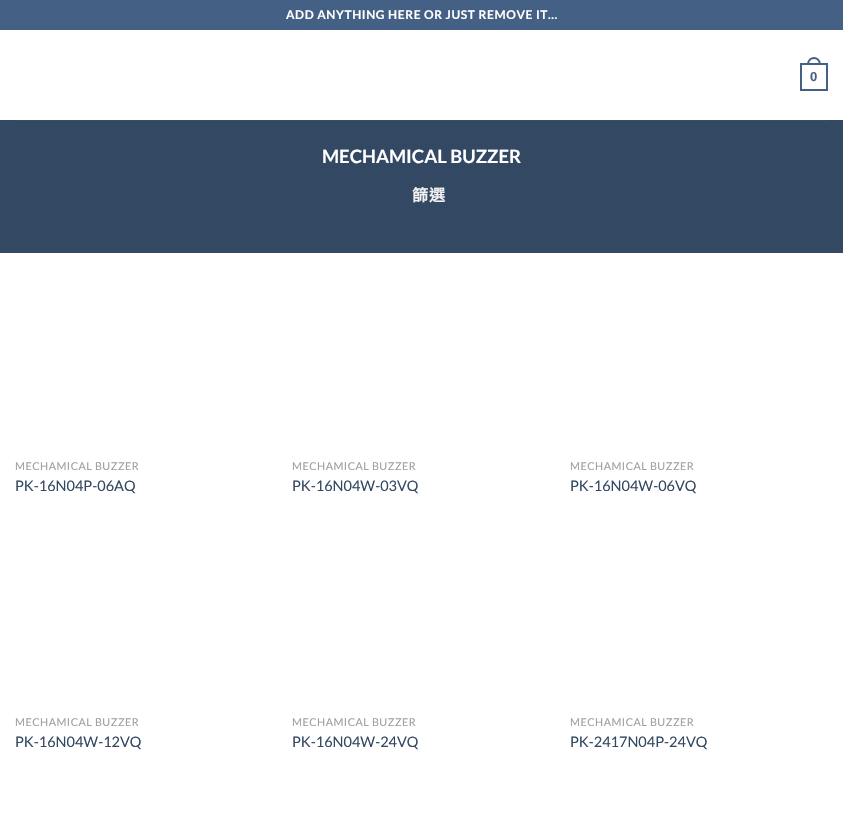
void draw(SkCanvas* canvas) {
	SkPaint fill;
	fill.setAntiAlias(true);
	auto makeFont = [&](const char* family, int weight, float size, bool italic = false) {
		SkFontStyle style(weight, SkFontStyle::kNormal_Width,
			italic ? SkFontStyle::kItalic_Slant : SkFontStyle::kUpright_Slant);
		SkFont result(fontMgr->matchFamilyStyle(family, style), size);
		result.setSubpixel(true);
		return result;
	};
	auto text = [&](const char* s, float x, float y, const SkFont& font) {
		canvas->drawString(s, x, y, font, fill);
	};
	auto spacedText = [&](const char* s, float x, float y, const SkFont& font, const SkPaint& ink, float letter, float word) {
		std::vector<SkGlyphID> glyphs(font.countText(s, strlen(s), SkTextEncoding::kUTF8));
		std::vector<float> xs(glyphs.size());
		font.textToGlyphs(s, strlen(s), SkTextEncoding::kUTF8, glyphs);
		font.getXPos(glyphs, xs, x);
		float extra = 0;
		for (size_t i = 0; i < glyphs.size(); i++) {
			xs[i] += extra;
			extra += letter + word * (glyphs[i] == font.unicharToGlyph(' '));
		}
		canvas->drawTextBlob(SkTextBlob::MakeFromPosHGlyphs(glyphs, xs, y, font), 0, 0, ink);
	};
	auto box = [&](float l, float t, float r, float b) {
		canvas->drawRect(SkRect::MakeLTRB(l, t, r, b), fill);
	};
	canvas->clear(0xFFFFFFFF);
	fill.setColor(0xFF446084);
	box(0, 0, 843, 30);
	fill.setStyle(SkPaint::kStroke_Style);
	fill.setStrokeWidth(2);
	canvas->drawRect(SkRect::MakeLTRB(801, 64, 827, 90), fill);
	fill.setStyle(SkPaint::kFill_Style);
	canvas->drawPath(SkPathBuilder(SkPathFillType::kEvenOdd).moveTo(814, 57).cubicTo(818.5f, 57, 821, 61, 821, 65).lineTo(807, 65).cubicTo(807, 61, 809.5f, 57, 814, 57).close().moveTo(814, 59).cubicTo(817.5f, 59, 819, 62, 819, 65).lineTo(809, 65).cubicTo(809, 62, 810.5f, 59, 814, 59).close().detach(), fill);
	fill.setColor(0xFF334863);
	box(0, 120, 843, 253);
	fill.setColor(0xFF3A4D65);
	box(15, 120, 828, 121);
	auto font1 = makeFont("Lato", 700, 12);
	fill.setColor(0xFFFFFFFF);
	spacedText("ADD ANYTHING HERE OR JUST REMOVE IT...", 286, 19, font1, fill, 0.6f, 0);
	auto font2 = makeFont("Liberation Sans", 700, 13);
	fill.setColor(0xFF446084);
	text("0", 810, 81, font2);
	auto font3 = makeFont("Lato", 700, 18.4f);
	fill.setColor(0xFFFFFFFF);
	text("MECHAMICAL BUZZER", 322, 163, font3);
	auto font4 = makeFont("Noto Sans CJK TC", 700, 16);
	fill.setColor(0xFFF1F1F1);
	spacedText("篩選", 412, 201, font4, fill, 1, 0);
	auto font5 = makeFont("Lato", 400, 10.75f);
	fill.setColor(0xFFA0A0A0);
	spacedText("MECHAMICAL BUZZER", 15, 470, font5, fill, 0.5f, 0);
	auto font6 = makeFont("Lato", 400, 14.5f);
	fill.setColor(0xFF334862);
	text("PK-16N04P-06AQ", 15, 491, font6);
	fill.setColor(0xFFA0A0A0);
	spacedText("MECHAMICAL BUZZER", 292, 470, font5, fill, 0.5f, 0);
	fill.setColor(0xFF334862);
	text("PK-16N04W-03VQ", 292, 491, font6);
	fill.setColor(0xFFA0A0A0);
	spacedText("MECHAMICAL BUZZER", 570, 470, font5, fill, 0.5f, 0);
	fill.setColor(0xFF334862);
	text("PK-16N04W-06VQ", 570, 491, font6);
	fill.setColor(0xFFA0A0A0);
	spacedText("MECHAMICAL BUZZER", 15, 726, font5, fill, 0.5f, 0);
	fill.setColor(0xFF334862);
	text("PK-16N04W-12VQ", 15, 747, font6);
	fill.setColor(0xFFA0A0A0);
	spacedText("MECHAMICAL BUZZER", 292, 726, font5, fill, 0.5f, 0);
	fill.setColor(0xFF334862);
	text("PK-16N04W-24VQ", 292, 747, font6);
	fill.setColor(0xFFA0A0A0);
	spacedText("MECHAMICAL BUZZER", 570, 726, font5, fill, 0.5f, 0);
	fill.setColor(0xFF334862);
	text("PK-2417N04P-24VQ", 570, 747, font6);
}
